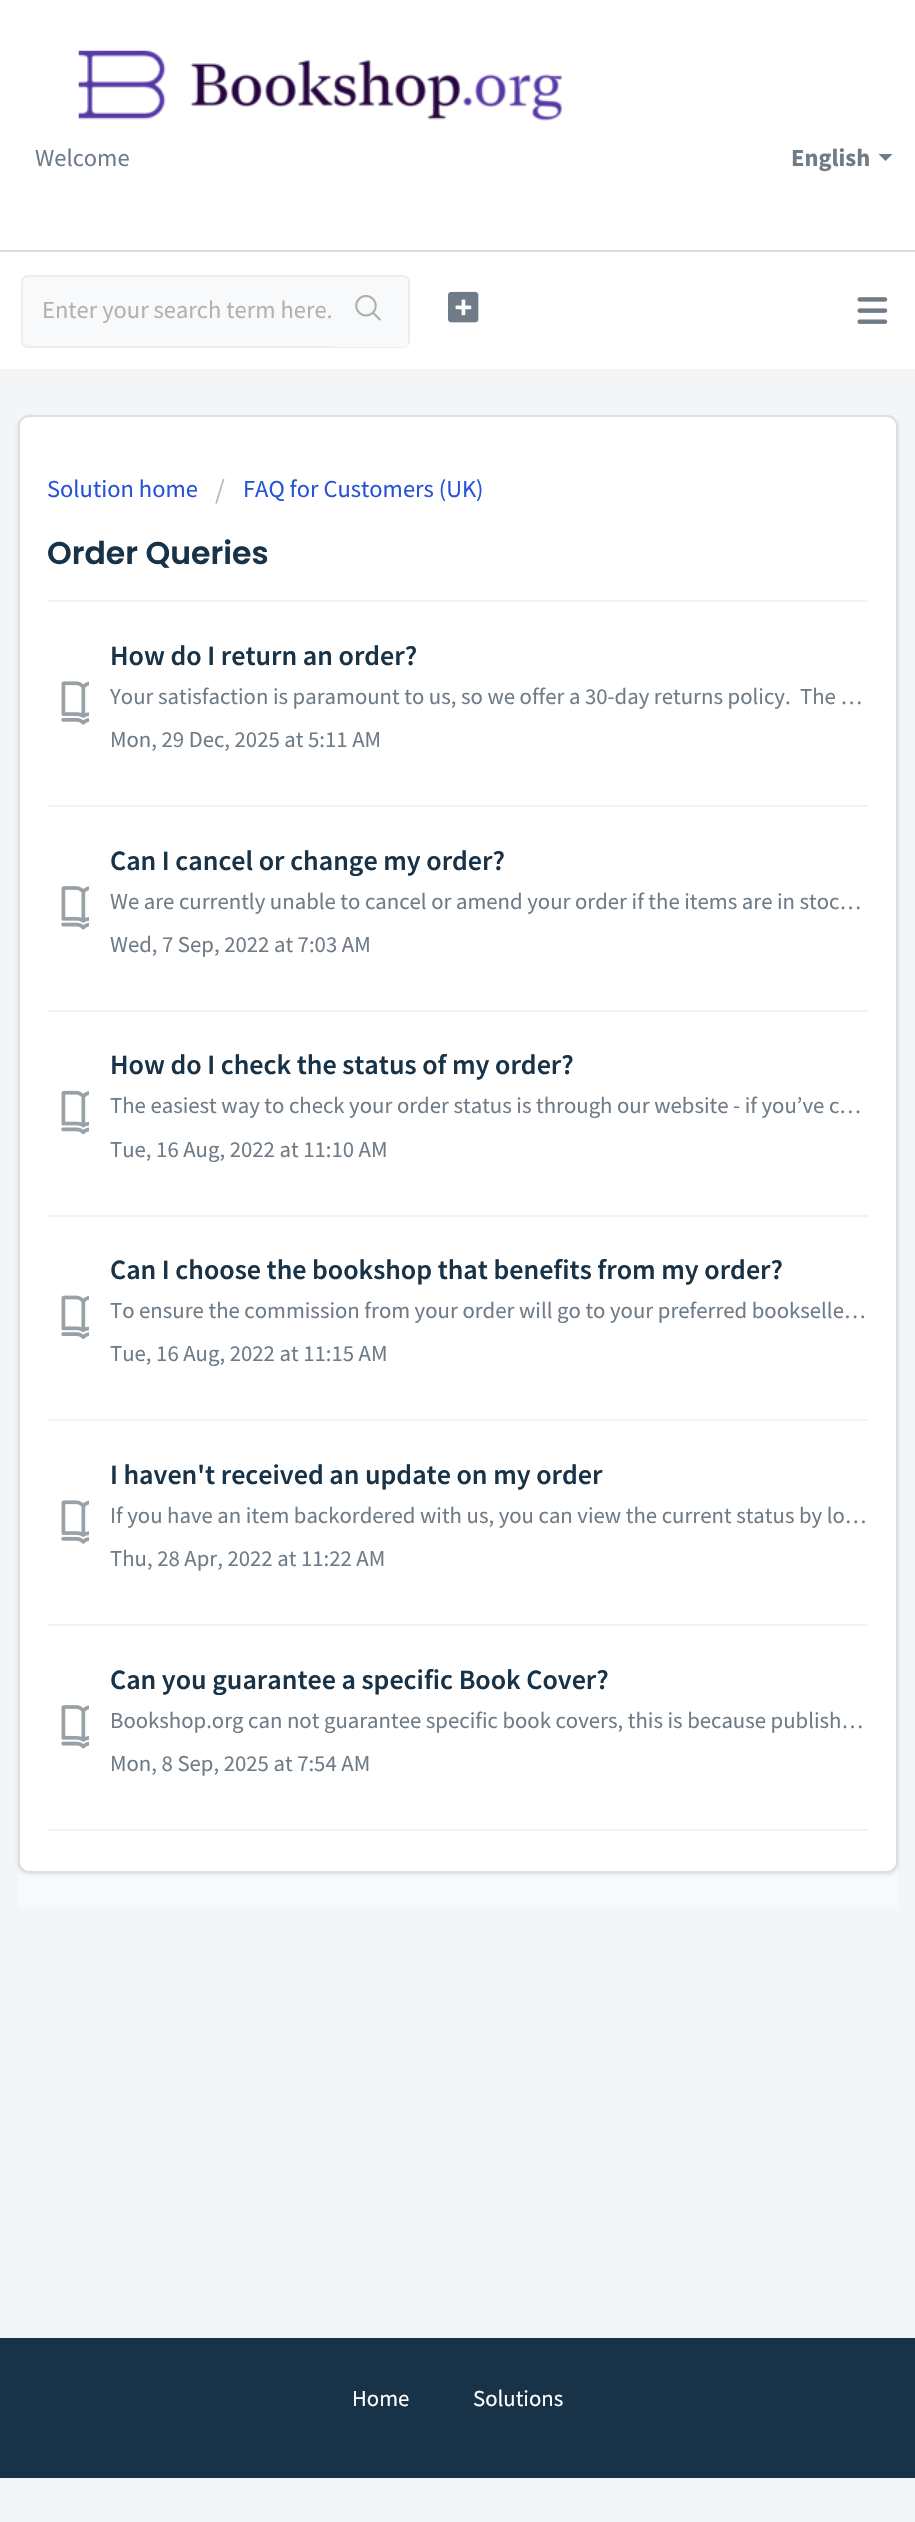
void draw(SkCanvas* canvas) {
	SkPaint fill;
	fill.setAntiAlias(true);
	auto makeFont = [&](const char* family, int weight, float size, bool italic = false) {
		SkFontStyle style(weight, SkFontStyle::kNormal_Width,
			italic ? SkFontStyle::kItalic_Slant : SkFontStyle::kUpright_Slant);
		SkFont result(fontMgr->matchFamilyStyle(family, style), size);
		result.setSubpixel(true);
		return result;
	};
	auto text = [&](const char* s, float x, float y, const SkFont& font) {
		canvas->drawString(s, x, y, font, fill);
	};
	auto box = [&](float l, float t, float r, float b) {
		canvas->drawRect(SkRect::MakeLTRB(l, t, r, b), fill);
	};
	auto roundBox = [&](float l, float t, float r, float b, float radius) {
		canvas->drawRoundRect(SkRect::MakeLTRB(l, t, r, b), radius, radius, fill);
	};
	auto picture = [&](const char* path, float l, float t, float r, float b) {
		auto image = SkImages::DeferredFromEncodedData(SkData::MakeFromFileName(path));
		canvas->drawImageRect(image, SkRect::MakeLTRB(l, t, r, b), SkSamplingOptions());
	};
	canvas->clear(0xFFF3F5F7);
	fill.setColor(0xFFFFFFFF);
	box(0, 0, 915, 250);
	fill.setColor(0xFFDADFE3);
	box(0, 250, 915, 252);
	picture("image0.png", 78, 50, 562, 121);
	fill.setColor(0xFF6F7C87);
	canvas->drawPath(SkPathBuilder().moveTo(878.5f, 154).lineTo(892.5f, 154).lineTo(885.5f, 161).close().detach(), fill);
	fill.setColor(0xFFFFFFFF);
	box(0, 252, 915, 369);
	picture("image1.png", 857, 297, 888, 324);
	fill.setColor(0xFFF8F9FA);
	canvas->drawRoundRect(SkRect::MakeLTRB(22, 276, 409, 347), 6, 6, fill);
	fill.setStyle(SkPaint::kStroke_Style);
	fill.setStrokeWidth(2);
	fill.setColor(0xFFEBEEF0);
	canvas->drawRoundRect(SkRect::MakeLTRB(22, 276, 409, 347), 6, 6, fill);
	picture("image3.png", 448, 291, 479, 323);
	fill.setStyle(SkPaint::kFill_Style);
	fill.setColor(0xFFF8F9FA);
	box(18, 415, 898, 1908);
	fill.setColor(0x263F3F44);
	fill.setMaskFilter(SkMaskFilter::MakeBlur(kNormal_SkBlurStyle, 2));
	canvas->drawRoundRect(SkRect::MakeLTRB(18, 417, 898, 1874), 11, 11, fill);
	fill.setMaskFilter(nullptr);
	fill.setColor(0xFFFFFFFF);
	canvas->drawRoundRect(SkRect::MakeLTRB(19, 416, 897, 1872), 10, 10, fill);
	fill.setStyle(SkPaint::kStroke_Style);
	fill.setColor(0xFFDADFE3);
	canvas->drawRoundRect(SkRect::MakeLTRB(19, 416, 897, 1872), 10, 10, fill);
	fill.setStyle(SkPaint::kFill_Style);
	fill.setColor(0xFFF3F3F3);
	box(47, 1829, 868, 1831);
	box(47, 600, 868, 602);
	picture("image4.png", 61, 681, 89, 725);
	box(47, 805, 868, 807);
	picture("image5.png", 61, 886, 89, 930);
	box(47, 1010, 868, 1012);
	picture("image6.png", 61, 1090, 89, 1135);
	box(47, 1215, 868, 1217);
	picture("image7.png", 61, 1295, 89, 1339);
	box(47, 1419, 868, 1421);
	picture("image4.png", 61, 1500, 89, 1544);
	box(47, 1624, 868, 1626);
	picture("image5.png", 61, 1705, 89, 1749);
	fill.setColor(0xFF183247);
	box(0, 2338, 915, 2478);
	auto font1 = makeFont("Source Sans Pro", 400, 24.5f);
	fill.setColor(0xFF6F7C87);
	text("Welcome", 35, 166, font1);
	auto font2 = makeFont("Source Sans Pro", 700, 24.5f);
	text("English", 791, 166, font2);
	fill.setColor(0xFFB2B2B2);
	text("Enter your search term here.", 42, 318, font1);
	fill.setColor(0xFFF8F9FA);
	roundBox(331, 277, 408, 347, 4);
	picture("image2.png", 355, 295, 381, 321);
	fill.setColor(0xFF2753D7);
	text("Solution home", 47, 497, font1);
	auto font3 = makeFont("Source Sans Pro", 400, 28);
	fill.setColor(0xFFBBBBBB);
	text("/", 215, 499, font3);
	fill.setColor(0xFF2753D7);
	text("FAQ for Customers (UK)", 243, 497, font1);
	auto font4 = makeFont("Poppins", 600, 31.5f);
	fill.setColor(0xFF183247);
	text("Order Queries", 47, 564, font4);
	auto font5 = makeFont("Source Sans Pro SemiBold", 600, 28);
	text("How do I return an order?", 110, 665, font5);
	auto font6 = makeFont("Source Sans Pro", 400, 22.75f);
	fill.setColor(0xFF6F7C87);
	text("Your satisfaction is paramount to us, so we offer a 30-day returns policy.", 110, 704, font6);
	text("The …", 800, 704, font6);
	text("Mon, 29 Dec, 2025 at 5:11 AM", 110, 747, font6);
	fill.setColor(0xFF183247);
	text("Can I cancel or change my order?", 110, 870, font5);
	fill.setColor(0xFF6F7C87);
	text("We are currently unable to cancel or amend your order if the items are in stoc…", 110, 909, font6);
	text("Wed, 7 Sep, 2022 at 7:03 AM", 110, 952, font6);
	fill.setColor(0xFF183247);
	text("How do I check the status of my order?", 110, 1074, font5);
	fill.setColor(0xFF6F7C87);
	text("The easiest way to check your order status is through our website - if you’ve c…", 110, 1113, font6);
	text("Tue, 16 Aug, 2022 at 11:10 AM", 110, 1157, font6);
	fill.setColor(0xFF183247);
	text("Can I choose the bookshop that benefits from my order?", 110, 1279, font5);
	fill.setColor(0xFF6F7C87);
	text("To ensure the commission from your order will go to your preferred bookselle…", 110, 1318, font6);
	text("Tue, 16 Aug, 2022 at 11:15 AM", 110, 1361, font6);
	fill.setColor(0xFF183247);
	text("I haven't received an update on my order", 110, 1484, font5);
	fill.setColor(0xFF6F7C87);
	text("If you have an item backordered with us, you can view the current status by lo…", 110, 1523, font6);
	text("Thu, 28 Apr, 2022 at 11:22 AM", 110, 1566, font6);
	fill.setColor(0xFF183247);
	text("Can you guarantee a specific Book Cover?", 110, 1689, font5);
	fill.setColor(0xFF6F7C87);
	text("Bookshop.org can not guarantee specific book covers, this is because publish…", 110, 1728, font6);
	text("Mon, 8 Sep, 2025 at 7:54 AM", 110, 1771, font6);
	fill.setColor(0xFFFFFFFF);
	text("Home", 352, 2406, font6);
	text("Solutions", 473, 2406, font6);
}
